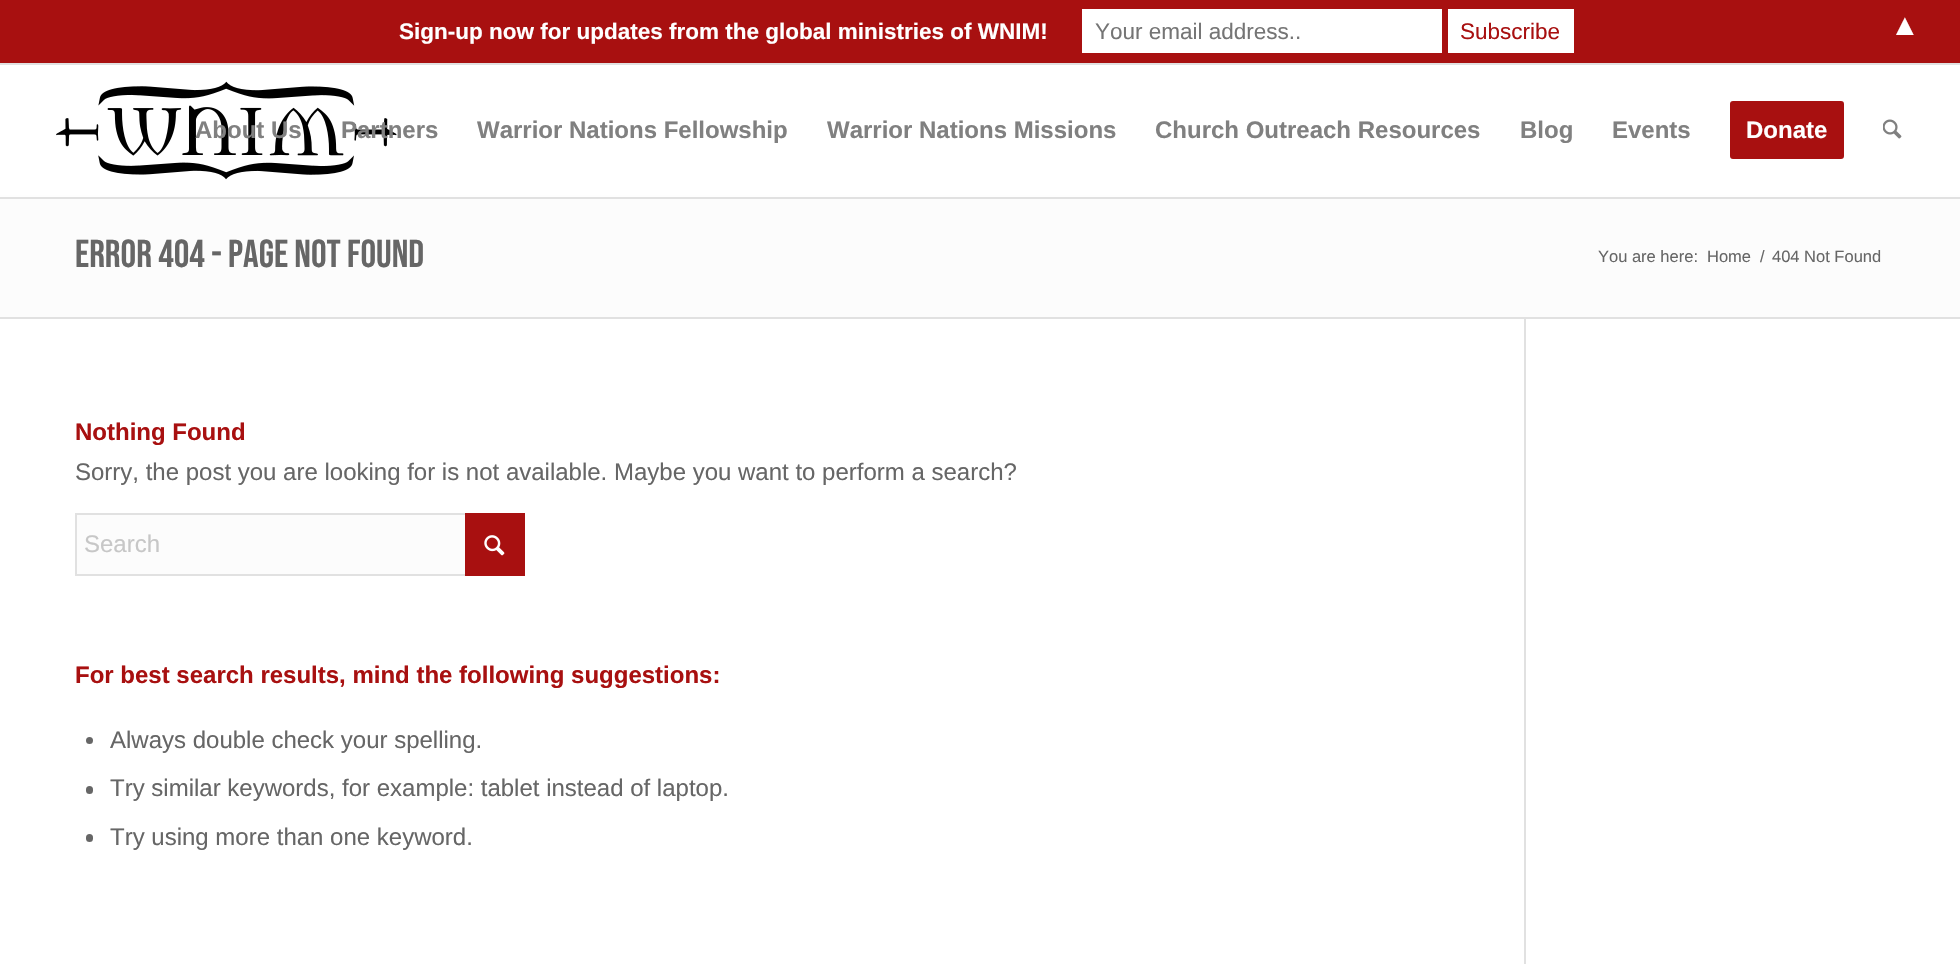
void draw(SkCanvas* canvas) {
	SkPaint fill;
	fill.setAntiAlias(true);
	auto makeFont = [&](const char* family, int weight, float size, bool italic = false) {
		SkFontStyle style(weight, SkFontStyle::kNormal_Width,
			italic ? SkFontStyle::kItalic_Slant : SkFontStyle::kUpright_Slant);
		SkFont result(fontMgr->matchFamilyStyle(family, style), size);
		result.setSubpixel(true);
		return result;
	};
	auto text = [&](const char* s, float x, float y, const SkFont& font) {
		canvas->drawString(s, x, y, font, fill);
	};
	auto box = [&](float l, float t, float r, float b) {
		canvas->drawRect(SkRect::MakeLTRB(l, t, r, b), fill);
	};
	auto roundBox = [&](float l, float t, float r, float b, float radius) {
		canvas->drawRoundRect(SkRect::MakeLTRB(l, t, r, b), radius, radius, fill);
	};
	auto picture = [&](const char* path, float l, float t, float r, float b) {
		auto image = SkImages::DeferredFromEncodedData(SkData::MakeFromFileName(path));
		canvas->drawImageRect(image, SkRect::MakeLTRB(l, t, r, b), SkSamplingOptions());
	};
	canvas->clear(0xFFA81010);
	fill.setColor(0xFFFFFFFF);
	box(1082, 9, 1442, 53);
	box(1448, 9, 1574, 53);
	box(0, 319, 1960, 964);
	box(0, 65, 1960, 195);
	fill.setColor(0xFFE1E1E1);
	box(0, 63, 1960, 65);
	box(0, 197, 1960, 199);
	picture("image0.png", 56, 81, 397, 180);
	fill.setColor(0xFFA81010);
	canvas->drawRoundRect(SkRect::MakeLTRB(1731.5f, 102.5f, 1842.5f, 157.5f), 1.5f, 1.5f, fill);
	fill.setStyle(SkPaint::kStroke_Style);
	fill.setStrokeWidth(3);
	canvas->drawRoundRect(SkRect::MakeLTRB(1731.5f, 102.5f, 1842.5f, 157.5f), 1.5f, 1.5f, fill);
	picture("image1.png", 1883, 119, 1902, 139);
	fill.setStyle(SkPaint::kFill_Style);
	fill.setColor(0xFFFCFCFC);
	box(0, 199, 1960, 317);
	fill.setColor(0xFFFEFEFE);
	box(0, 195, 1960, 197);
	fill.setColor(0xFFE1E1E1);
	box(0, 317, 1960, 319);
	box(1524, 318, 1526, 964);
	fill.setColor(0xFFFCFCFC);
	box(77, 515, 465, 574);
	fill.setStyle(SkPaint::kStroke_Style);
	fill.setStrokeWidth(2);
	fill.setColor(0xFFE1E1E1);
	canvas->drawRect(SkRect::MakeLTRB(76, 514, 524, 575), fill);
	fill.setStyle(SkPaint::kFill_Style);
	fill.setColor(0xFFA81010);
	box(465, 513, 525, 576);
	picture("image2.png", 484, 535, 505, 556);
	fill.setColor(0xFF666666);
	canvas->drawCircle(89.5f, 740.5f, 3.5f, fill);
	roundBox(86, 786, 93, 794, 3.5f);
	roundBox(86, 834, 93, 842, 3.5f);
	auto font1 = makeFont("Liberation Sans", 700, 22.5f);
	fill.setColor(0xFFFFFFFF);
	text("Sign-up now for updates from the global ministries of WNIM!", 399, 39, font1);
	auto font2 = makeFont("Liberation Sans", 400, 22.5f);
	fill.setColor(0xFF757575);
	text("Your email address..", 1095, 39, font2);
	fill.setColor(0xFFA81010);
	text("Subscribe", 1460, 39, font2);
	auto font3 = makeFont("Liberation Sans", 400, 30);
	fill.setColor(0xFFFFFFFF);
	text("▲", 1890, 35, font3);
	auto font4 = makeFont("Liberation Sans", 700, 24);
	fill.setColor(0xFF808080);
	text("About Us", 195, 138, font4);
	text("Partners", 341, 138, font4);
	text("Warrior Nations Fellowship", 477, 138, font4);
	text("Warrior Nations Missions", 827, 138, font4);
	text("Church Outreach Resources", 1155, 138, font4);
	text("Blog", 1520, 138, font4);
	text("Events", 1612, 138, font4);
	fill.setColor(0xFFFFFFFF);
	text("Donate", 1746, 138, font4);
	auto font5 = makeFont("Bebas Neue", 400, 39);
	fill.setColor(0xFF666666);
	text("Error 404 - page not found", 75, 267, font5);
	auto font6 = makeFont("Liberation Sans", 400, 16.5f);
	text("You are here:", 1598, 262, font6);
	text("Home", 1707, 262, font6);
	text("/", 1760, 262, font6);
	text("404 Not Found", 1772, 262, font6);
	fill.setColor(0xFFA81010);
	text("Nothing Found", 75, 440, font4);
	auto font7 = makeFont("Liberation Sans", 400, 24);
	fill.setColor(0xFF666666);
	text("Sorry, the post you are looking for is not available. Maybe you want to perform a search?", 75, 480, font7);
	fill.setColor(0xFFC7C7C7);
	text("Search", 84, 552, font7);
	fill.setColor(0xFFA81010);
	text("For best search results, mind the following suggestions:", 75, 683, font4);
	fill.setColor(0xFF666666);
	text("Always double check your spelling.", 110, 748, font7);
	text("Try similar keywords, for example: tablet instead of laptop.", 110, 796, font7);
	text("Try using more than one keyword.", 110, 845, font7);
}
